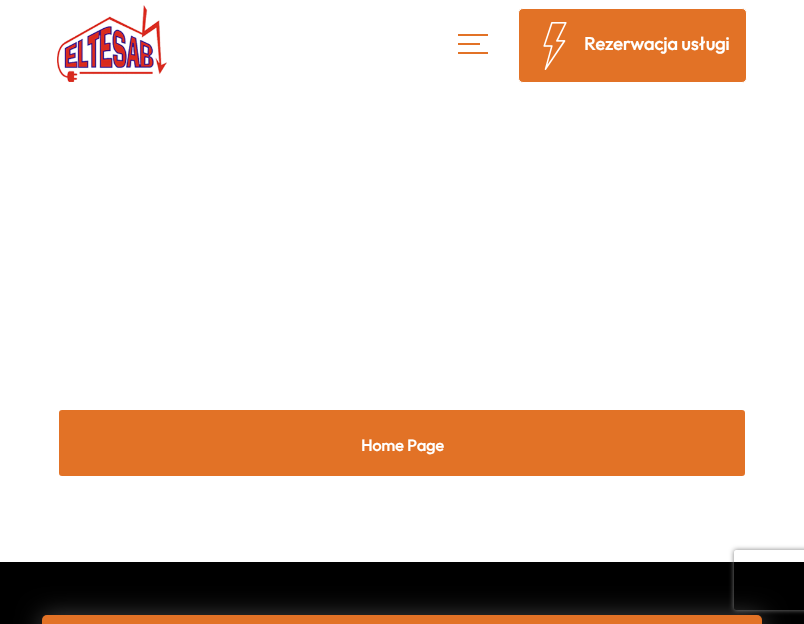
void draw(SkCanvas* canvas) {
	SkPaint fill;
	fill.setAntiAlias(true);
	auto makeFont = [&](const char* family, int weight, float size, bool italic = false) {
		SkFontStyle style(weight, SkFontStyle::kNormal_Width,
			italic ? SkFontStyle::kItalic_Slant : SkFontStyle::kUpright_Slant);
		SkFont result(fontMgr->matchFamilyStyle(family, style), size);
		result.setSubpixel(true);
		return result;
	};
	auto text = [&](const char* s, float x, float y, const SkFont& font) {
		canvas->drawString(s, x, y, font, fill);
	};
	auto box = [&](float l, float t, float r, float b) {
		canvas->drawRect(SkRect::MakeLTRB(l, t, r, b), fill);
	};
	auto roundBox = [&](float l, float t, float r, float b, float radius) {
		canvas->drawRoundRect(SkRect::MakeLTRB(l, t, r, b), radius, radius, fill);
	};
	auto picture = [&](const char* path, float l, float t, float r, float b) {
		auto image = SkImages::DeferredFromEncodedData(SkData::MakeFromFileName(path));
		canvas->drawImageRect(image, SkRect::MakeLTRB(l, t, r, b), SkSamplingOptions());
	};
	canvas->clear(0xFFFFFFFF);
	picture("image0.png", 57, 5, 167, 82);
	fill.setColor(0xFFE27226);
	box(458, 34, 488, 36);
	box(458, 43, 480, 45);
	box(458, 52, 488, 54);
	canvas->drawRoundRect(SkRect::MakeLTRB(518.5f, 8.5f, 746.5f, 82.5f), 4.5f, 4.5f, fill);
	fill.setStyle(SkPaint::kStroke_Style);
	fill.setStrokeWidth(1);
	fill.setColor(0xFFFFFFFF);
	canvas->drawRoundRect(SkRect::MakeLTRB(518.5f, 8.5f, 746.5f, 82.5f), 4.5f, 4.5f, fill);
	picture("image1.png", 543, 22, 567, 70);
	fill.setStyle(SkPaint::kFill_Style);
	fill.setColor(0xFFE27226);
	canvas->drawRoundRect(SkRect::MakeLTRB(58, 409, 746, 477), 4, 4, fill);
	fill.setStyle(SkPaint::kStroke_Style);
	fill.setStrokeWidth(2);
	fill.setColor(0xFFFFFFFF);
	canvas->drawRoundRect(SkRect::MakeLTRB(58, 409, 746, 477), 4, 4, fill);
	fill.setStyle(SkPaint::kFill_Style);
	fill.setColor(0xFF000000);
	box(0, 562, 804, 624);
	canvas->save();
	canvas->clipPath(SkPathBuilder(SkPathFillType::kEvenOdd).moveTo(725, 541).lineTo(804, 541).lineTo(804, 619).lineTo(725, 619).close().moveTo(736, 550).lineTo(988, 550).cubicTo(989, 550, 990, 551, 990, 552).lineTo(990, 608).cubicTo(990, 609, 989, 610, 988, 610).lineTo(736, 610).cubicTo(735, 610, 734, 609, 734, 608).lineTo(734, 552).cubicTo(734, 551, 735, 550, 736, 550).close().detach(), true);
	fill.setColor(0xFF808080);
	fill.setMaskFilter(SkMaskFilter::MakeBlur(kNormal_SkBlurStyle, 2.5f));
	canvas->drawRoundRect(SkRect::MakeLTRB(734, 550, 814, 610), 2, 2, fill);
	fill.setMaskFilter(nullptr);
	canvas->restore();
	fill.setColor(0x59BDBDBD);
	fill.setMaskFilter(SkMaskFilter::MakeBlur(kNormal_SkBlurStyle, 12.5f));
	canvas->drawRoundRect(SkRect::MakeLTRB(42, 615, 762, 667), 5, 5, fill);
	fill.setMaskFilter(nullptr);
	fill.setColor(0xFFE27226);
	roundBox(42, 615, 762, 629, 5);
	auto font1 = makeFont("Outfit", 700, 18);
	fill.setColor(0xFFFFFFFF);
	text("Rezerwacja usługi", 584, 50, font1);
	auto font2 = makeFont("Outfit", 700, 16);
	text("Home Page", 361, 451, font2);
}
